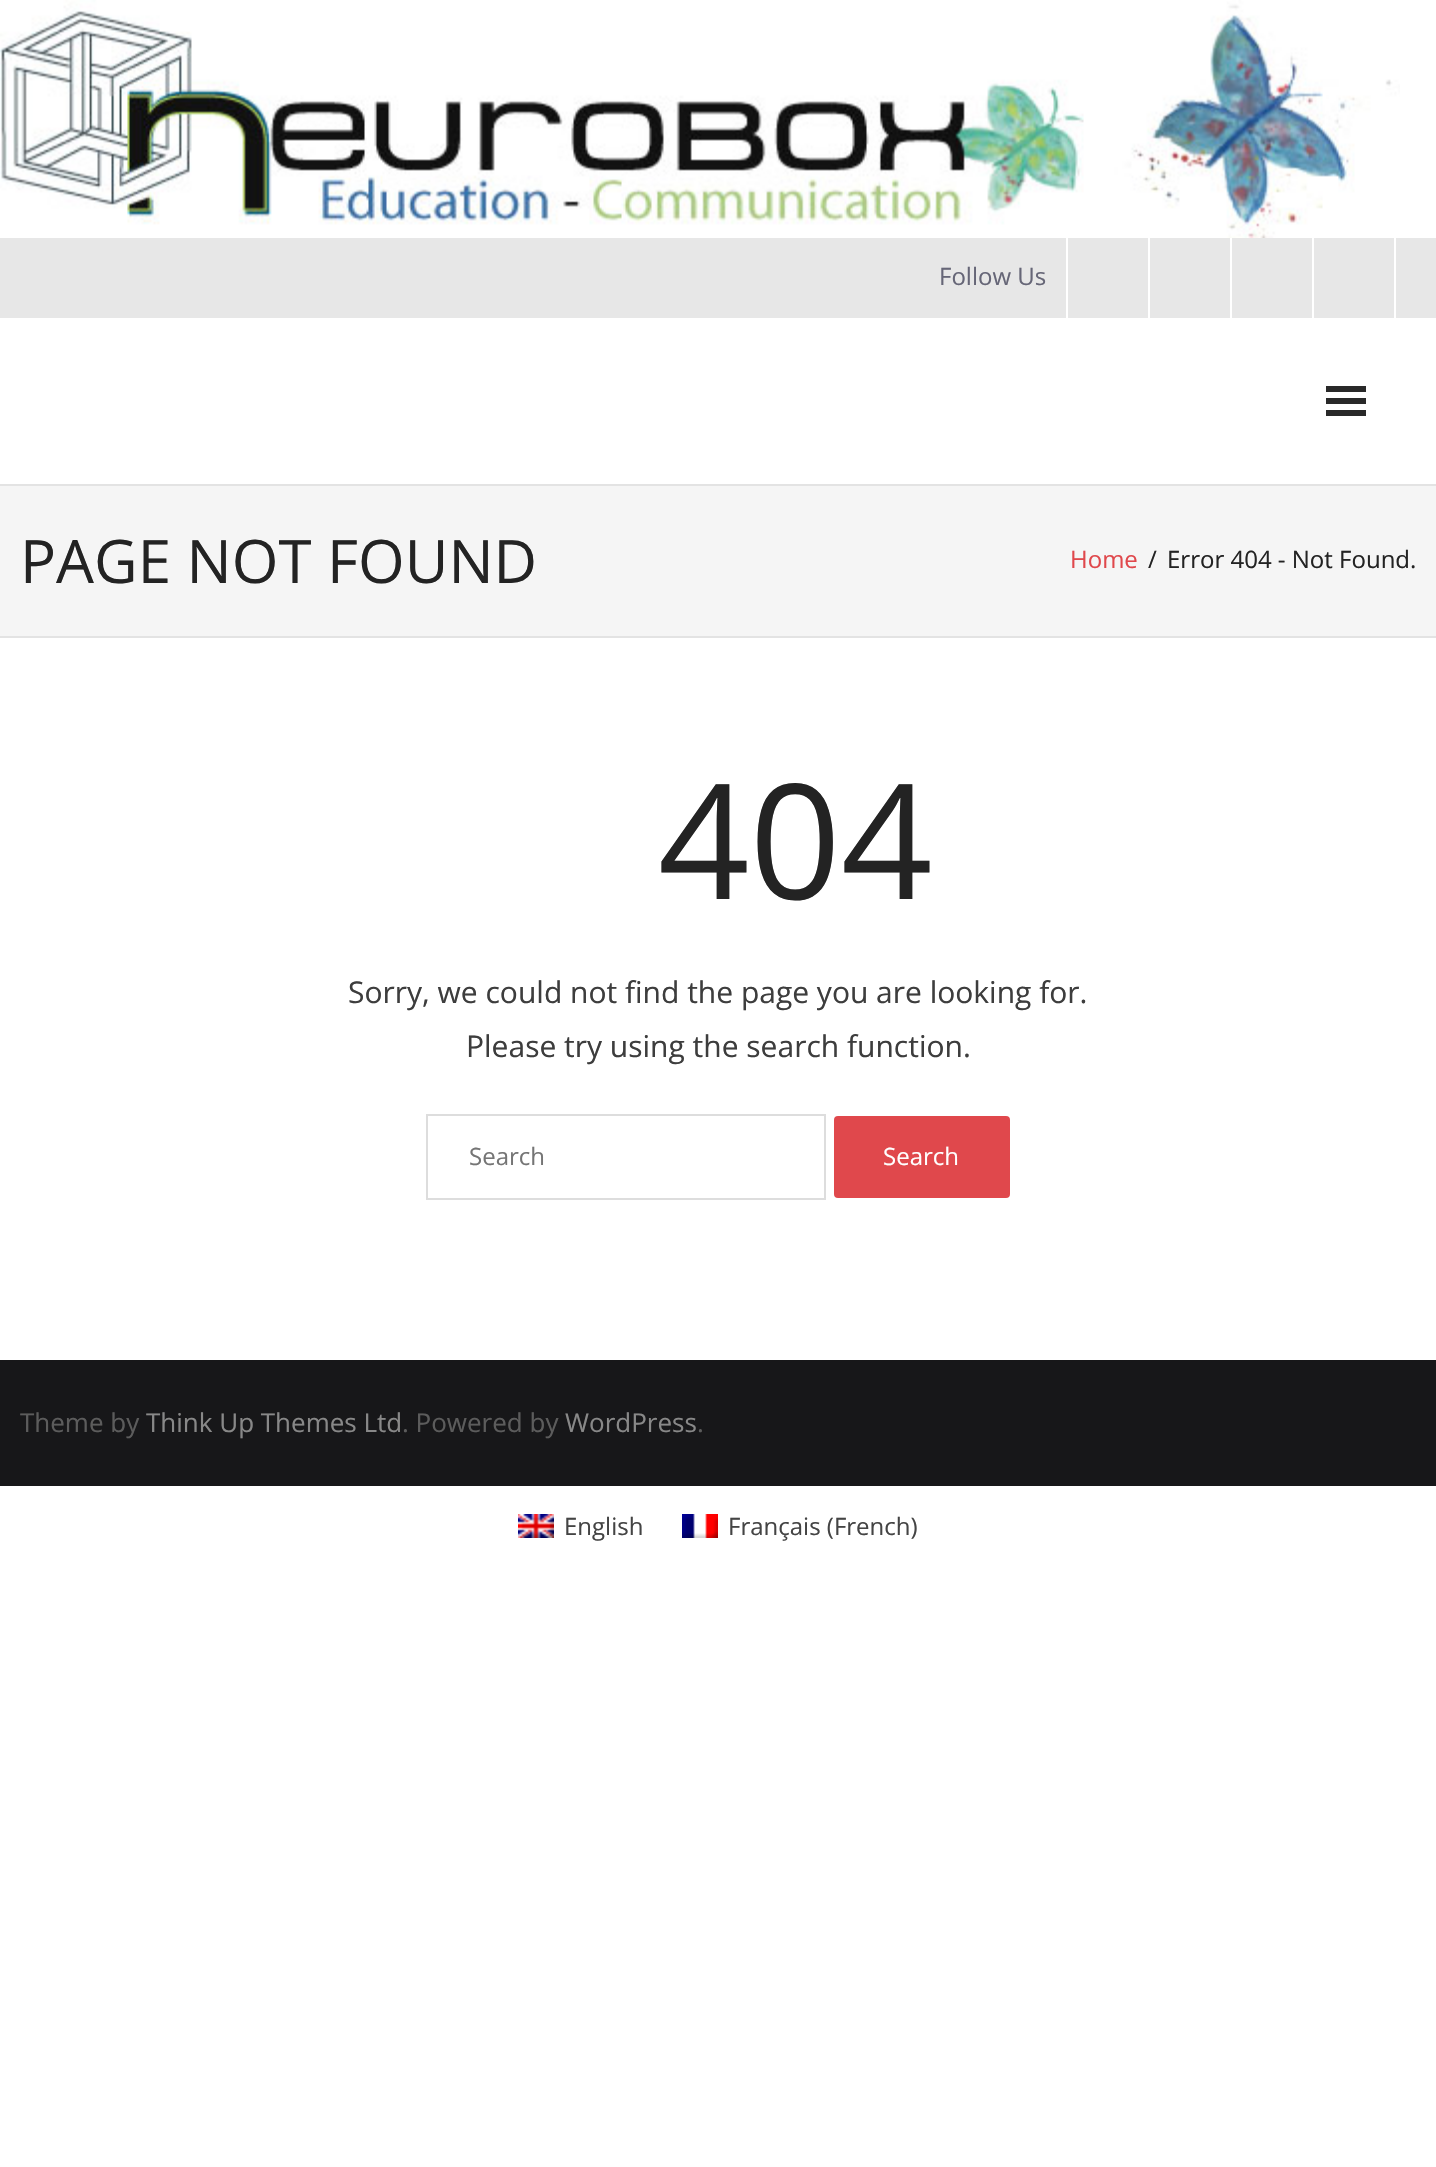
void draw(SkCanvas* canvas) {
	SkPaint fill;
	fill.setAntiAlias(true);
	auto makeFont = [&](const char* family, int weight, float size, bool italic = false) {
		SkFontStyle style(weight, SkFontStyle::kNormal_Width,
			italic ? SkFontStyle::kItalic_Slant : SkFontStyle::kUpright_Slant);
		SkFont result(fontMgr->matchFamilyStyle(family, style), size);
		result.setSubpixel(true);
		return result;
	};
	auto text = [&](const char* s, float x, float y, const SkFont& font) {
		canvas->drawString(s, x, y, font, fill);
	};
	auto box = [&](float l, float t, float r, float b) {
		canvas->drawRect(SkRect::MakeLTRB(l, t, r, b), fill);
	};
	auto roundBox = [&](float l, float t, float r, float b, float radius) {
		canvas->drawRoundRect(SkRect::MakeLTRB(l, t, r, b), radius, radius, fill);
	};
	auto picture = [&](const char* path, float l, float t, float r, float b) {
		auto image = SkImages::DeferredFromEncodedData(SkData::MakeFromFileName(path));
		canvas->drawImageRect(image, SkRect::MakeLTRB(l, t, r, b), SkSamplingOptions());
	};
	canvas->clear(0xFFFFFFFF);
	picture("image0.png", 0, 0, 1400, 238);
	fill.setColor(0xFFE7E7E7);
	box(0, 238, 1436, 318);
	fill.setColor(0xFFFFFFFF);
	box(1066, 238, 1068, 318);
	box(1148, 238, 1150, 318);
	box(1230, 238, 1232, 318);
	box(1394, 238, 1396, 318);
	box(1312, 238, 1314, 318);
	fill.setColor(0xFFE3E3E3);
	box(0, 484, 1436, 486);
	fill.setColor(0xFF292929);
	box(1326, 386, 1366, 392);
	box(1326, 398, 1366, 404);
	box(1326, 410, 1366, 416);
	fill.setColor(0xFFF5F5F5);
	box(0, 486, 1436, 636);
	fill.setColor(0xFFE3E3E3);
	box(0, 636, 1436, 638);
	fill.setStyle(SkPaint::kStroke_Style);
	fill.setStrokeWidth(2);
	fill.setColor(0xFFDDDDDD);
	canvas->drawRect(SkRect::MakeLTRB(427, 1115, 825, 1199), fill);
	fill.setStyle(SkPaint::kFill_Style);
	fill.setColor(0xFFE0484C);
	roundBox(834, 1116, 1010, 1198, 4);
	fill.setColor(0xFF171719);
	box(0, 1360, 1436, 1486);
	picture("image1.png", 518, 1514, 554, 1538);
	picture("image2.png", 682, 1514, 718, 1538);
	auto font1 = makeFont("Open Sans", 400, 24);
	fill.setColor(0xFF666677);
	text("Follow Us", 939, 285, font1);
	auto font2 = makeFont("Open Sans", 400, 60);
	fill.setColor(0xFF232323);
	text("PAGE NOT FOUND", 20, 583, font2);
	fill.setColor(0xFFE0484C);
	text("Home", 1070, 568, font1);
	fill.setColor(0xFF232323);
	text("/", 1148, 568, font1);
	text("Error 404 - Not Found.", 1167, 568, font1);
	auto font3 = makeFont("Open Sans", 400, 160);
	text("404", 658, 899, font3);
	auto font4 = makeFont("Open Sans", 400, 30);
	fill.setColor(0xFF3D3D3D);
	text("Sorry, we could not find the page you are looking for.", 348, 1003, font4);
	text("Please try using the search function.", 466, 1057, font4);
	fill.setColor(0xFF757575);
	text("Search", 469, 1165, font1);
	fill.setColor(0xFFFFFFFF);
	text("Search", 883, 1165, font1);
	auto font5 = makeFont("Open Sans", 400, 26);
	fill.setColor(0xFF5C5C5C);
	text("Theme by", 20, 1432, font5);
	fill.setColor(0xFF888888);
	text("Think Up Themes Ltd", 146, 1432, font5);
	fill.setColor(0xFF5C5C5C);
	text(". Powered by", 402, 1432, font5);
	fill.setColor(0xFF888888);
	text("WordPress", 565, 1432, font5);
	fill.setColor(0xFF5C5C5C);
	text(".", 697, 1432, font5);
	fill.setColor(0xFF444444);
	text("English", 564, 1535, font1);
	text("Français (French)", 728, 1535, font1);
}
